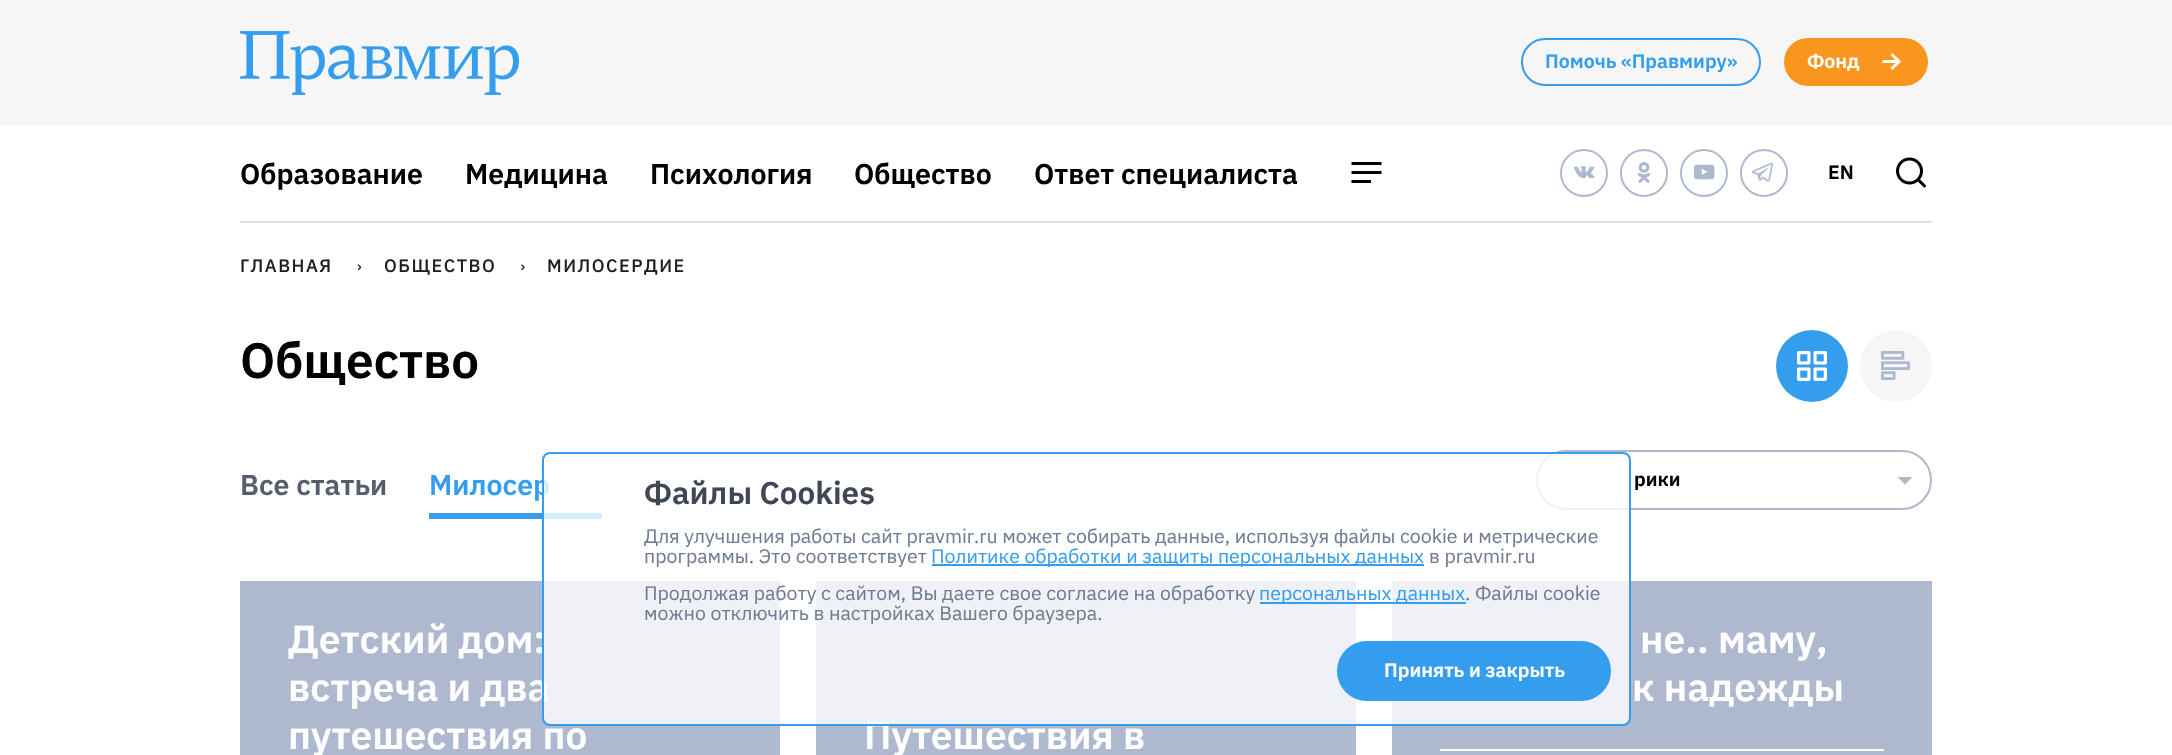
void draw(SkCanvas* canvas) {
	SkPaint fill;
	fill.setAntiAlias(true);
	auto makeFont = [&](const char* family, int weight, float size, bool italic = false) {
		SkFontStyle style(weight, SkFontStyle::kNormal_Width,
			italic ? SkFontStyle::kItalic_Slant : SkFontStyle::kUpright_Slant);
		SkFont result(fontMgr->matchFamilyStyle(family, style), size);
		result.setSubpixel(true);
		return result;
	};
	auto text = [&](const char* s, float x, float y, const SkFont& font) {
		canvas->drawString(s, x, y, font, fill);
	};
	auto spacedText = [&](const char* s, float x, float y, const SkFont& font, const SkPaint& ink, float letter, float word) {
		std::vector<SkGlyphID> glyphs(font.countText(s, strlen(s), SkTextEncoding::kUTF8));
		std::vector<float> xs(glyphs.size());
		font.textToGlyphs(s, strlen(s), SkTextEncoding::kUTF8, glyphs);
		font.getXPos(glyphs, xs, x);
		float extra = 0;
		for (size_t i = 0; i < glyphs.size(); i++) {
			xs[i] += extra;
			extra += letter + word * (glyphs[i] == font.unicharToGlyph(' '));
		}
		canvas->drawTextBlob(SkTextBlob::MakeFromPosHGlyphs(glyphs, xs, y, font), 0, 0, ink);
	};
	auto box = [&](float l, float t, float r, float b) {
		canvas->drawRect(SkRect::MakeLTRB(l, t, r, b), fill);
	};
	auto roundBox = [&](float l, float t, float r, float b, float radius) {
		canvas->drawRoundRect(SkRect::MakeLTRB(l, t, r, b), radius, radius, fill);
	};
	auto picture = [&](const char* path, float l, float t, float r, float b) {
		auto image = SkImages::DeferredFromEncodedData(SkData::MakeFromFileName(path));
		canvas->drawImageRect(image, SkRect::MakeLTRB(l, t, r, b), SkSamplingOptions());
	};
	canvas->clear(0xFFFFFFFF);
	fill.setColor(0xFFF6F6F6);
	box(0, 0, 2172, 125);
	picture("image0.png", 240, 31, 519, 95);
	fill.setStyle(SkPaint::kStroke_Style);
	fill.setStrokeWidth(2);
	fill.setColor(0xFF349DEE);
	canvas->drawRoundRect(SkRect::MakeLTRB(1522, 39, 1760, 85), 23, 23, fill);
	fill.setStyle(SkPaint::kFill_Style);
	fill.setColor(0xFFFA961D);
	roundBox(1784, 38, 1928, 86, 24);
	picture("image1.png", 1882, 53, 1901, 70);
	picture("image2.png", 1351, 162, 1382, 183);
	fill.setStyle(SkPaint::kStroke_Style);
	fill.setColor(0xFFAEB9CF);
	canvas->drawCircle(1584, 173, 23, fill);
	picture("image3.png", 1574, 166, 1595, 179);
	canvas->drawCircle(1644, 173, 23, fill);
	picture("image4.png", 1638, 162, 1650, 183);
	canvas->drawCircle(1704, 173, 23, fill);
	picture("image5.png", 1694, 164, 1715, 180);
	canvas->drawCircle(1764, 173, 23, fill);
	picture("image6.png", 1752, 162, 1773, 182);
	picture("image7.png", 1896, 157, 1926, 188);
	fill.setStyle(SkPaint::kFill_Style);
	fill.setColor(0xFFDFE1E7);
	box(240, 221, 1932, 223);
	picture("image8.png", 357, 264, 361, 271);
	picture("image9.png", 521, 264, 525, 271);
	fill.setColor(0xFF349DEE);
	canvas->drawCircle(1812, 366, 36, fill);
	picture("image10.png", 1797, 351, 1827, 381);
	fill.setColor(0xFFF6F6F6);
	canvas->drawCircle(1896, 366, 36, fill);
	picture("image11.png", 1881, 351, 1910, 380);
	fill.setColor(0xFF349DEE);
	box(429, 513, 602, 519);
	fill.setStyle(SkPaint::kStroke_Style);
	fill.setColor(0xFFAEB9CF);
	canvas->drawRoundRect(SkRect::MakeLTRB(1537, 451, 1931, 509), 29, 29, fill);
	fill.setStyle(SkPaint::kFill_Style);
	canvas->drawPath(SkPathBuilder().moveTo(1897.5f, 477).lineTo(1912.5f, 477).lineTo(1905, 484.5f).close().detach(), fill);
	box(240, 581, 780, 755);
	box(1392, 581, 1932, 755);
	fill.setColor(0xFFFFFFFF);
	box(1440, 749, 1884, 751);
	fill.setColor(0xFFAEB9CF);
	box(816, 581, 1356, 755);
	auto font1 = makeFont("IBM Plex Sans", 600, 19.5f);
	fill.setColor(0xFF349DEE);
	text("Помочь «Правмиру»", 1545, 68, font1);
	fill.setColor(0xFFFFFFFF);
	text("Фонд", 1807, 68, font1);
	auto font2 = makeFont("IBM Plex Sans", 600, 28.5f);
	fill.setColor(0xFF000000);
	text("Образование", 240, 184, font2);
	text("Медицина", 465, 184, font2);
	text("Психология", 650, 184, font2);
	text("Общество", 854, 184, font2);
	text("Ответ специалиста", 1034, 184, font2);
	text("EN", 1828, 179, font1);
	auto font3 = makeFont("IBM Plex Sans", 500, 18);
	fill.setColor(0xFF1F1F1F);
	spacedText("ГЛАВНАЯ", 240, 272, font3, fill, 1.5f, 0);
	spacedText("ОБЩЕСТВО", 384, 272, font3, fill, 1.5f, 0);
	spacedText("МИЛОСЕРДИЕ", 547, 272, font3, fill, 1.5f, 0);
	auto font4 = makeFont("IBM Plex Sans", 600, 49.5f);
	fill.setColor(0xFF000000);
	text("Общество", 240, 378, font4);
	fill.setColor(0xFF565D6D);
	text("Все статьи", 240, 495, font2);
	fill.setColor(0xFF349DEE);
	text("Милосер", 429, 495, font2);
	fill.setColor(0xFF000000);
	text("рики", 1634, 486, font1);
	auto font5 = makeFont("IBM Plex Sans", 600, 39);
	fill.setColor(0xFFFFFFFF);
	text("Детский дом:", 288, 653, font5);
	text("встреча и два", 288, 701, font5);
	text("путешествия по", 288, 749, font5);
	text("не.. маму,", 1640, 653, font5);
	text("к надежды", 1632, 701, font5);
	text("Путешествия в", 864, 749, font5);
	fill.setColor(0xCCFFFFFF);
	canvas->drawRoundRect(SkRect::MakeLTRB(543, 453, 1630, 725), 7, 7, fill);
	fill.setStyle(SkPaint::kStroke_Style);
	fill.setColor(0xFF349DEE);
	canvas->drawRoundRect(SkRect::MakeLTRB(543, 453, 1630, 725), 7, 7, fill);
	auto font6 = makeFont("IBM Plex Sans", 600, 31.5f);
	fill.setStyle(SkPaint::kFill_Style);
	fill.setColor(0xFF3F4753);
	text("Файлы Cookies", 644, 504, font6);
	auto font7 = makeFont("IBM Plex Sans", 400, 19.5f);
	fill.setColor(0xFF6E7B93);
	text("Для улучшения работы сайт pravmir.ru может собирать данные, используя файлы cookie и метрические", 644, 543, font7);
	text("программы. Это соответствует", 644, 563, font7);
	fill.setColor(0xFF349DEE);
	box(932, 564, 1424, 566);
	text("Политике обработки и защиты персональных данных", 931, 563, font7);
	fill.setColor(0xFF6E7B93);
	text("в pravmir.ru", 1429, 563, font7);
	text("Продолжая работу с сайтом, Вы даете свое согласие на обработку", 644, 600, font7);
	fill.setColor(0xFF349DEE);
	box(1260, 602, 1466, 604);
	text("персональных данных", 1259, 600, font7);
	fill.setColor(0xFF6E7B93);
	text(". Файлы cookie", 1465, 600, font7);
	text("можно отключить в настройках Вашего браузера.", 644, 620, font7);
	fill.setColor(0xFF349DEE);
	canvas->drawRoundRect(SkRect::MakeLTRB(1338, 642, 1610, 700), 29, 29, fill);
	fill.setStyle(SkPaint::kStroke_Style);
	canvas->drawRoundRect(SkRect::MakeLTRB(1338, 642, 1610, 700), 29, 29, fill);
	fill.setStyle(SkPaint::kFill_Style);
	fill.setColor(0xFFFFFFFF);
	text("Принять и закрыть", 1384, 677, font1);
}
